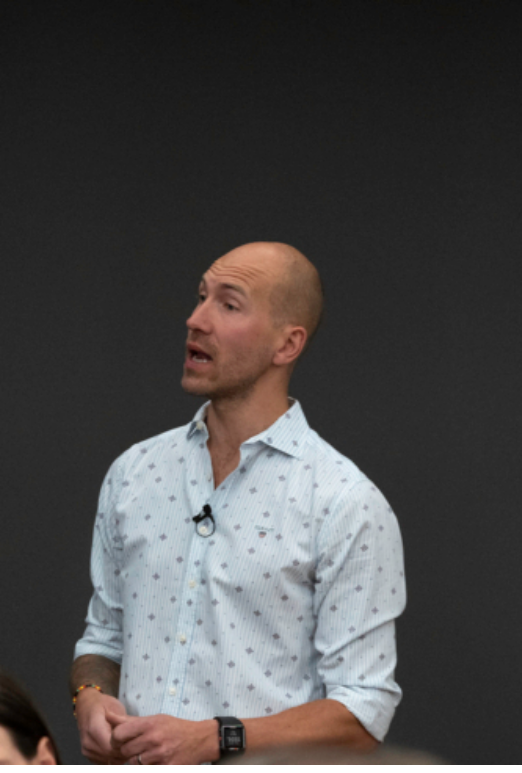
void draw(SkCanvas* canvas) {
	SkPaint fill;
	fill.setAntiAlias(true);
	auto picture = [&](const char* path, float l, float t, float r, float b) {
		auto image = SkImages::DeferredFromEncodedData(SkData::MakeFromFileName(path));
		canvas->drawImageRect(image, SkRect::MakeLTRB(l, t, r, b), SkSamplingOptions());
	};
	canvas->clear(0xFFFFFFFF);
	picture("image0.png", 0, 0, 522, 765);
}
